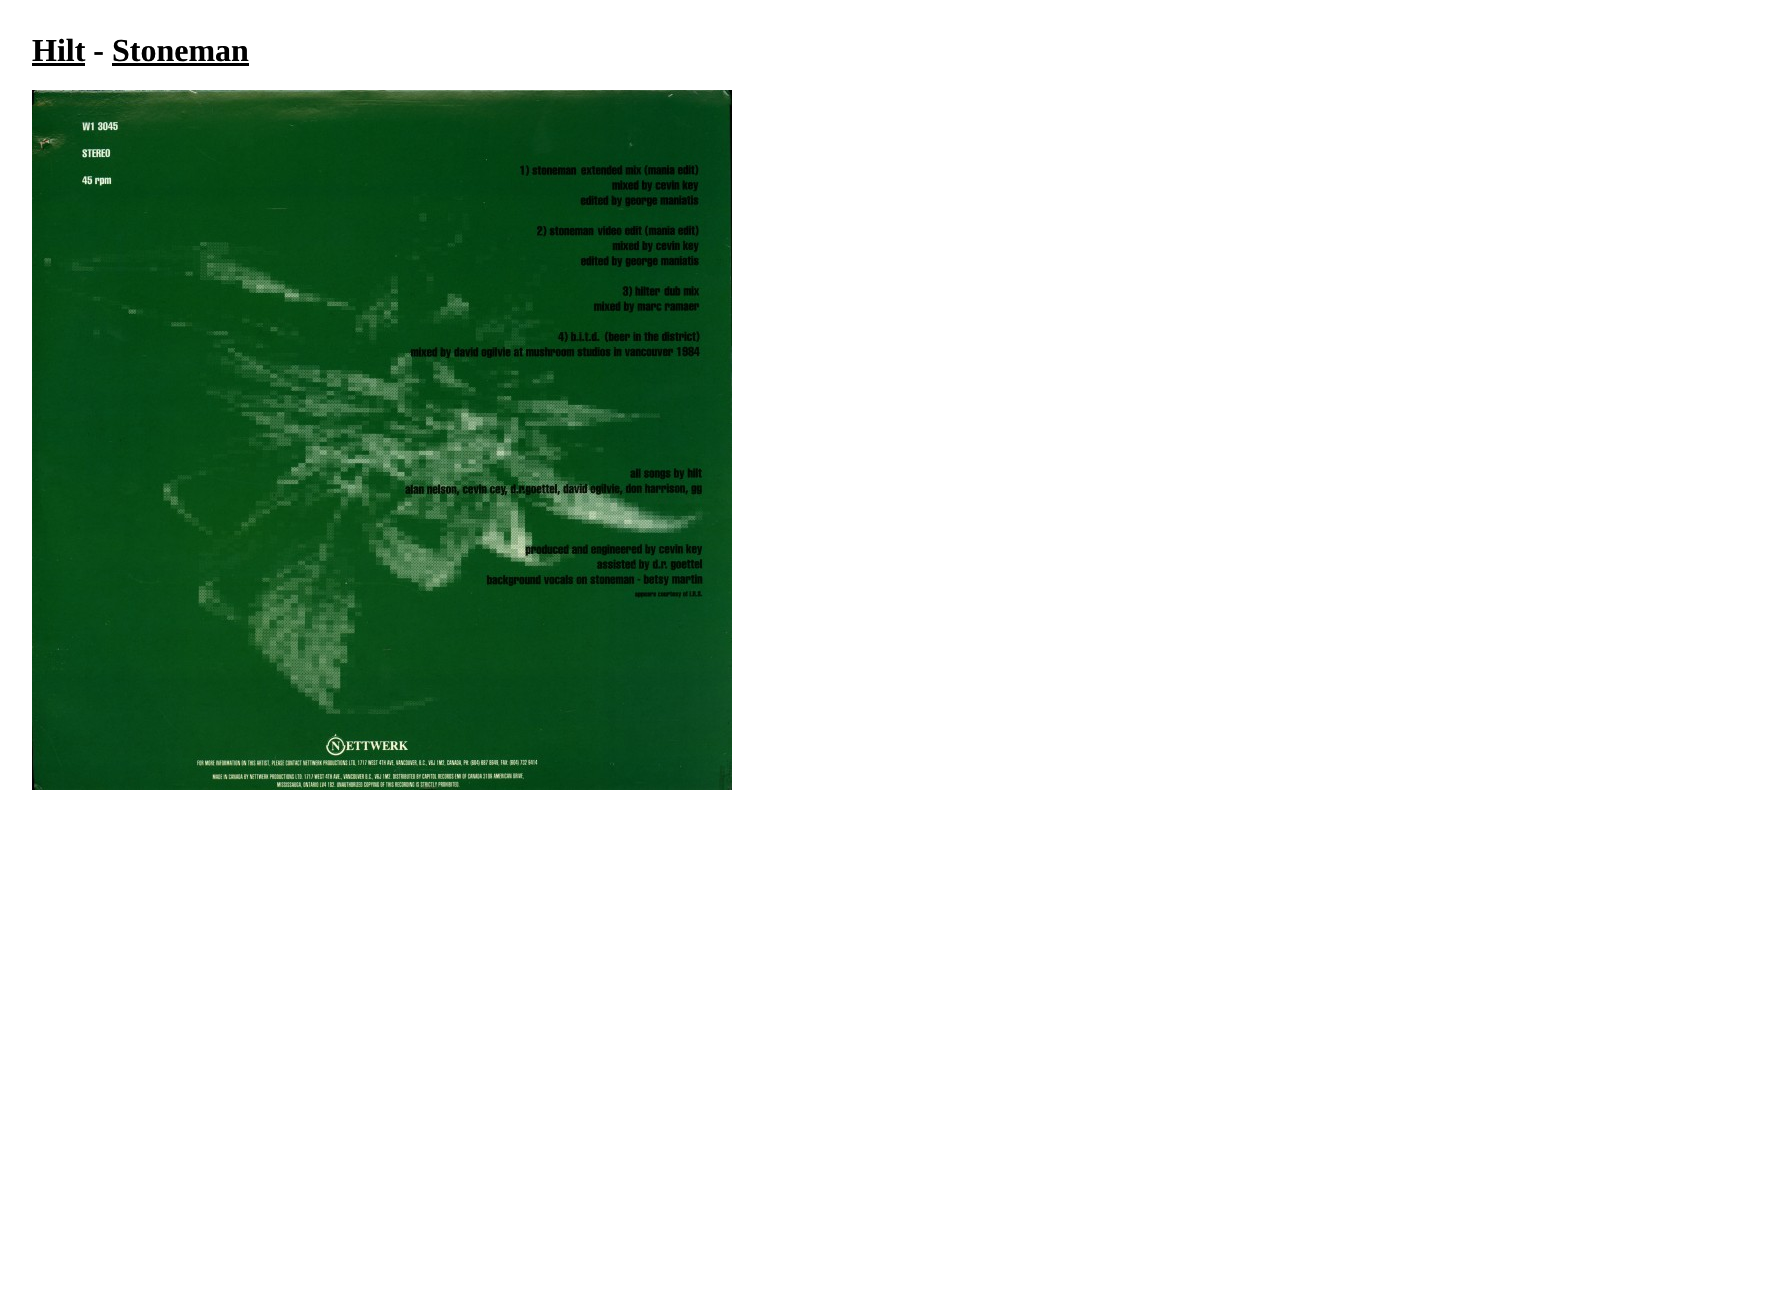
void draw(SkCanvas* canvas) {
	SkPaint fill;
	fill.setAntiAlias(true);
	auto makeFont = [&](const char* family, int weight, float size, bool italic = false) {
		SkFontStyle style(weight, SkFontStyle::kNormal_Width,
			italic ? SkFontStyle::kItalic_Slant : SkFontStyle::kUpright_Slant);
		SkFont result(fontMgr->matchFamilyStyle(family, style), size);
		result.setSubpixel(true);
		return result;
	};
	auto text = [&](const char* s, float x, float y, const SkFont& font) {
		canvas->drawString(s, x, y, font, fill);
	};
	auto box = [&](float l, float t, float r, float b) {
		canvas->drawRect(SkRect::MakeLTRB(l, t, r, b), fill);
	};
	auto picture = [&](const char* path, float l, float t, float r, float b) {
		auto image = SkImages::DeferredFromEncodedData(SkData::MakeFromFileName(path));
		canvas->drawImageRect(image, SkRect::MakeLTRB(l, t, r, b), SkSamplingOptions());
	};
	canvas->clear(0xFFFFFFFF);
	fill.setColor(0xFF000000);
	box(32, 63, 85, 66);
	box(112, 63, 249, 66);
	picture("image0.png", 32, 90, 732, 790);
	auto font1 = makeFont("Liberation Serif", 700, 32);
	text("Hilt - Stoneman", 32, 61, font1);
}
